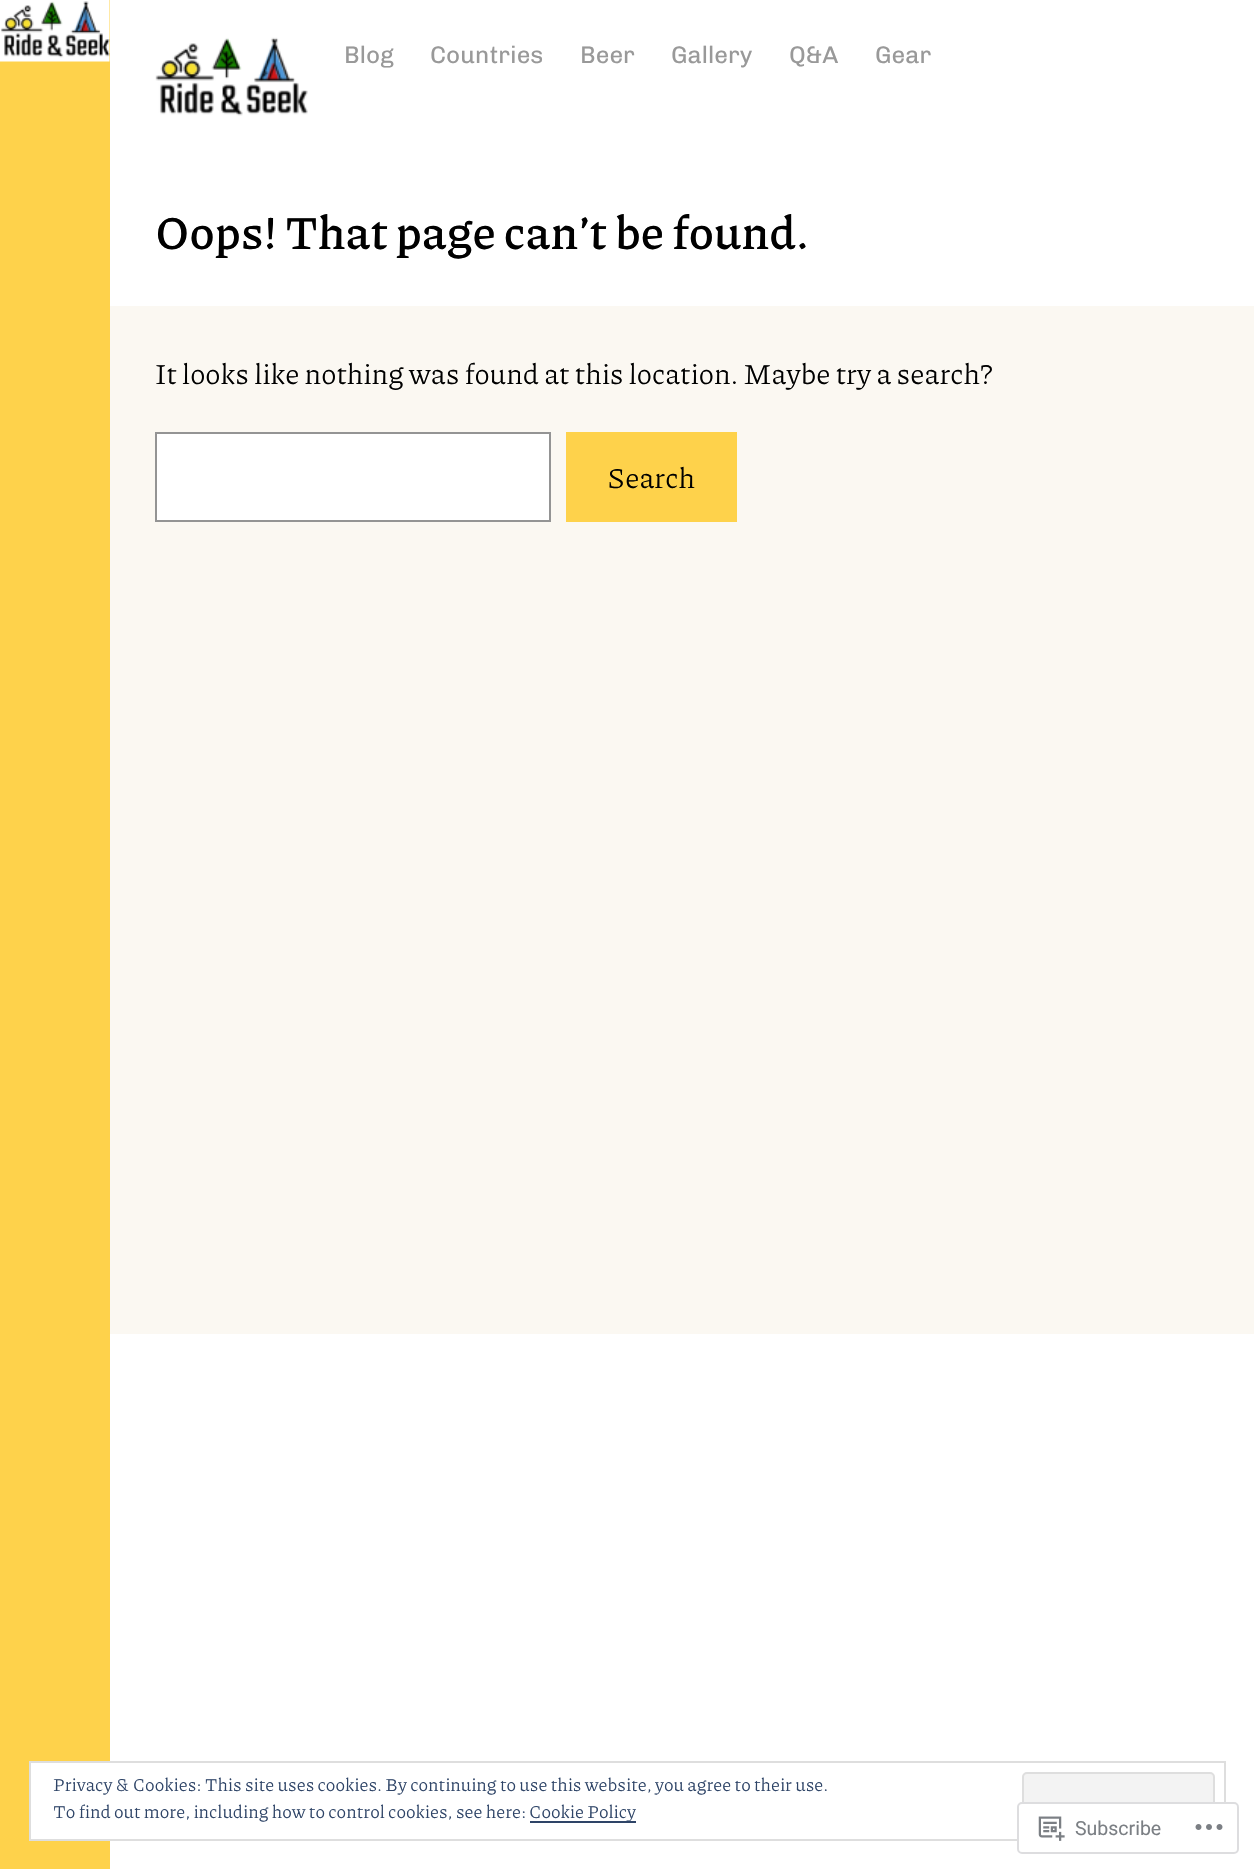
void draw(SkCanvas* canvas) {
	SkPaint fill;
	fill.setAntiAlias(true);
	auto makeFont = [&](const char* family, int weight, float size, bool italic = false) {
		SkFontStyle style(weight, SkFontStyle::kNormal_Width,
			italic ? SkFontStyle::kItalic_Slant : SkFontStyle::kUpright_Slant);
		SkFont result(fontMgr->matchFamilyStyle(family, style), size);
		result.setSubpixel(true);
		return result;
	};
	auto text = [&](const char* s, float x, float y, const SkFont& font) {
		canvas->drawString(s, x, y, font, fill);
	};
	auto box = [&](float l, float t, float r, float b) {
		canvas->drawRect(SkRect::MakeLTRB(l, t, r, b), fill);
	};
	auto roundBox = [&](float l, float t, float r, float b, float radius) {
		canvas->drawRoundRect(SkRect::MakeLTRB(l, t, r, b), radius, radius, fill);
	};
	auto picture = [&](const char* path, float l, float t, float r, float b) {
		auto image = SkImages::DeferredFromEncodedData(SkData::MakeFromFileName(path));
		canvas->drawImageRect(image, SkRect::MakeLTRB(l, t, r, b), SkSamplingOptions());
	};
	canvas->clear(0xFFFFFFFF);
	fill.setColor(0xFFFED24B);
	box(0, 0, 110, 1869);
	picture("image0.png", 0, 0, 110, 62);
	picture("image1.png", 155, 37, 308, 116);
	fill.setColor(0xFFFBF8F2);
	box(110, 306, 1254, 1334);
	fill.setColor(0xFFFFFFFF);
	canvas->drawRect(SkRect::MakeLTRB(156, 433, 550, 521), fill);
	fill.setStyle(SkPaint::kStroke_Style);
	fill.setStrokeWidth(2);
	fill.setColor(0xFF949494);
	canvas->drawRect(SkRect::MakeLTRB(156, 433, 550, 521), fill);
	fill.setStyle(SkPaint::kFill_Style);
	fill.setColor(0xFFFED24B);
	box(566, 432, 737, 522);
	fill.setColor(0xFFFFFFFF);
	box(31, 1763, 110, 1839);
	fill.setStyle(SkPaint::kStroke_Style);
	fill.setColor(0xFFDEDEDE);
	canvas->drawRect(SkRect::MakeLTRB(30, 1762, 1225, 1840), fill);
	fill.setStyle(SkPaint::kFill_Style);
	fill.setColor(0xFFF3F3F3);
	canvas->drawRoundRect(SkRect::MakeLTRB(1023, 1773, 1214, 1829), 4, 4, fill);
	fill.setStyle(SkPaint::kStroke_Style);
	fill.setColor(0xFFDEDEDE);
	canvas->drawRoundRect(SkRect::MakeLTRB(1023, 1773, 1214, 1829), 4, 4, fill);
	fill.setStyle(SkPaint::kFill_Style);
	fill.setColor(0xFF2E4467);
	box(530, 1821, 636, 1823);
	fill.setColor(0xFAFFFFFF);
	roundBox(1017, 1802, 1239, 1854, 5);
	fill.setStyle(SkPaint::kStroke_Style);
	fill.setColor(0xFADCDCDE);
	canvas->drawRoundRect(SkRect::MakeLTRB(1018, 1803, 1238, 1853), 4, 4, fill);
	picture("image2.png", 1038, 1816, 1065, 1841);
	picture("image3.png", 1195, 1824, 1223, 1830);
	auto font1 = makeFont("Chivo", 400, 24);
	fill.setStyle(SkPaint::kFill_Style);
	fill.setColor(0xFF999999);
	text("Blog", 344, 63, font1);
	text("Countries", 430, 63, font1);
	text("Beer", 580, 63, font1);
	text("Gallery", 671, 63, font1);
	text("Q&A", 789, 63, font1);
	text("Gear", 875, 63, font1);
	auto font2 = makeFont("Piazzolla", 600, 46.5f);
	fill.setColor(0xFF000000);
	text("Oops! That page can’t be found.", 155, 249, font2);
	auto font3 = makeFont("Piazzolla", 300, 28.55f);
	text("It looks like nothing was found at this location. Maybe try a search?", 155, 384, font3);
	text("Search", 607, 488, font3);
	auto font4 = makeFont("Piazzolla", 300, 18);
	fill.setColor(0xFF2E4467);
	text("Privacy & Cookies: This site uses cookies. By continuing to use this website, you agree to their use.", 53, 1791, font4);
	text("To find out more, including how to control cookies, see here:", 53, 1818, font4);
	text("Cookie Policy", 529, 1818, font4);
	auto font5 = makeFont("Roboto", 400, 19.5f);
	fill.setColor(0xFF7B7F84);
	text("Subscribe", 1075, 1835, font5);
}
